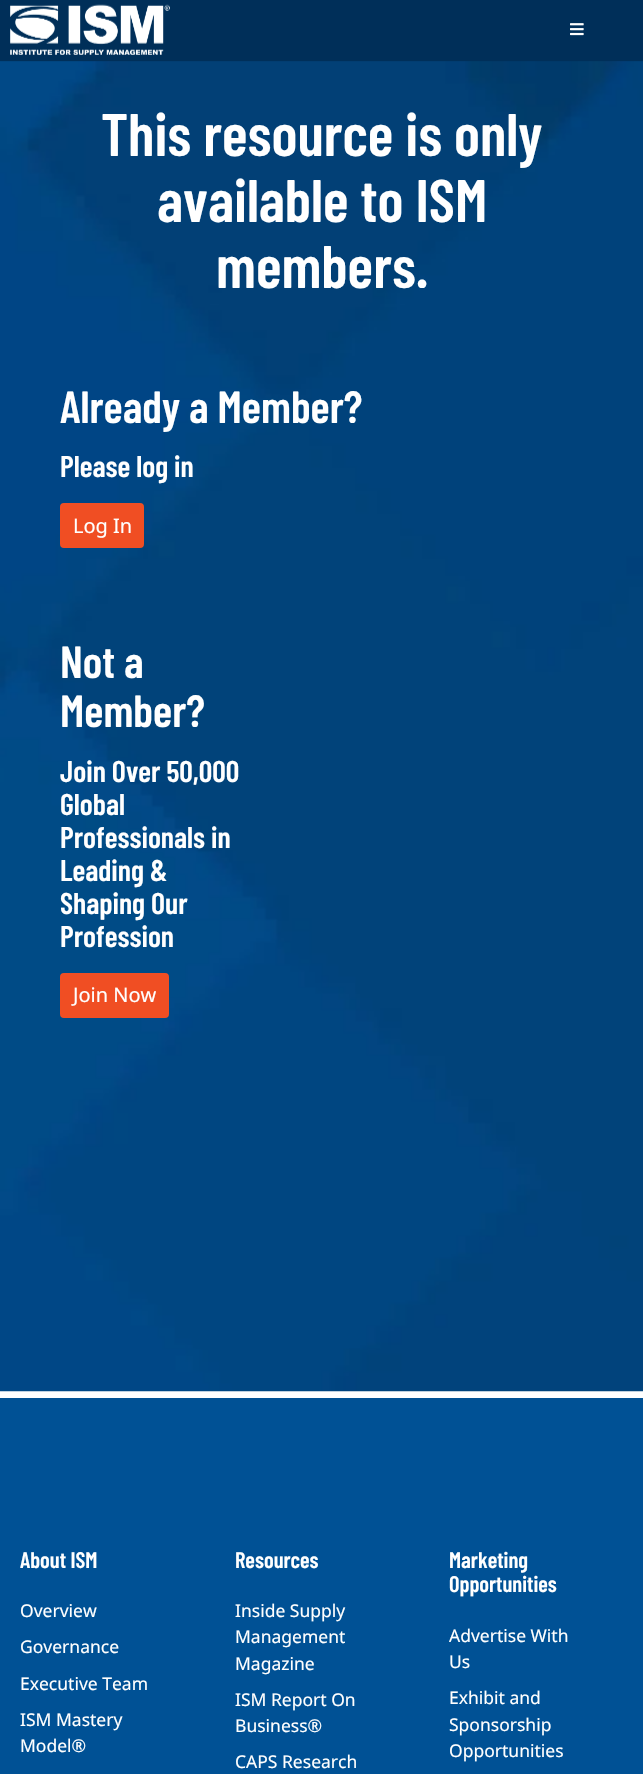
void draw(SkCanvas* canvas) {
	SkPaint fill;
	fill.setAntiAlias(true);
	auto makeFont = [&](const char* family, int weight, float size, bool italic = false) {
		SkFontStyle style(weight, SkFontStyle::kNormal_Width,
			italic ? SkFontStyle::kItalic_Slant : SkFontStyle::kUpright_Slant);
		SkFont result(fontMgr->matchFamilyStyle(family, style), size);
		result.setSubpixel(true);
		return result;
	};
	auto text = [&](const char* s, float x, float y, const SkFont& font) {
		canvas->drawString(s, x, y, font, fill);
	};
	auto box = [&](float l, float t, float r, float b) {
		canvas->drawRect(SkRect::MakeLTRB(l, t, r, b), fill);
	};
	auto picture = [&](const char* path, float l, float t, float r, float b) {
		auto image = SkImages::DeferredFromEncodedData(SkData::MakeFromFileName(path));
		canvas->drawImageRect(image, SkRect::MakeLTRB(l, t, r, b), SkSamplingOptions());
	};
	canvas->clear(0xFFFFFFFF);
	picture("image2.png", 0, 60, 643, 1392);
	fill.setColor(0xFF002F59);
	fill.setMaskFilter(SkMaskFilter::MakeBlur(kNormal_SkBlurStyle, 0.5f));
	canvas->drawRect(SkRect::MakeLTRB(0, 1, 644, 61), fill);
	fill.setMaskFilter(nullptr);
	box(0, 0, 643, 60);
	picture("image0.png", 10, 4, 170, 55);
	picture("image1.png", 570, 23, 584, 36);
	fill.setColor(0xFFF04E23);
	canvas->drawRoundRect(SkRect::MakeLTRB(61.5f, 504.5f, 142.5f, 546.5f), 2.5f, 2.5f, fill);
	fill.setStyle(SkPaint::kStroke_Style);
	fill.setStrokeWidth(3);
	canvas->drawRoundRect(SkRect::MakeLTRB(61.5f, 504.5f, 142.5f, 546.5f), 2.5f, 2.5f, fill);
	fill.setStyle(SkPaint::kFill_Style);
	canvas->drawRoundRect(SkRect::MakeLTRB(61.5f, 974.5f, 167.5f, 1016.5f), 2.5f, 2.5f, fill);
	fill.setStyle(SkPaint::kStroke_Style);
	canvas->drawRoundRect(SkRect::MakeLTRB(61.5f, 974.5f, 167.5f, 1016.5f), 2.5f, 2.5f, fill);
	fill.setStyle(SkPaint::kFill_Style);
	fill.setColor(0xFF005195);
	box(0, 1398, 643, 1774);
	auto font1 = makeFont("Barlow Condensed", 600, 60);
	fill.setColor(0xFFFFFFFF);
	text("This resource is only", 101, 156, font1);
	text("available to ISM", 157, 222, font1);
	text("members.", 216, 288, font1);
	auto font2 = makeFont("Barlow Condensed", 600, 45);
	text("Already a Member?", 60, 423, font2);
	auto font3 = makeFont("Barlow Condensed", 600, 30);
	text("Please log in", 60, 477, font3);
	auto font4 = makeFont("Noto Sans", 400, 20);
	text("Log In", 73, 533, font4);
	text("Not a", 60, 678, font2);
	text("Member?", 60, 727, font2);
	text("Join Over 50,000", 60, 782, font3);
	text("Global", 60, 815, font3);
	text("Professionals in", 60, 848, font3);
	text("Leading &", 60, 881, font3);
	text("Shaping Our", 60, 914, font3);
	text("Profession", 60, 947, font3);
	text("Join Now", 73, 1002, font4);
	auto font5 = makeFont("Barlow Condensed", 600, 22.5f);
	text("About ISM", 20, 1568, font5);
	auto font6 = makeFont("Noto Sans", 400, 17.5f);
	text("Overview", 20, 1617, font6);
	text("Governance", 20, 1653, font6);
	text("Executive Team", 20, 1690, font6);
	text("ISM Mastery", 20, 1726, font6);
	text("Model®", 20, 1752, font6);
	text("Resources", 235, 1568, font5);
	text("Inside Supply", 235, 1617, font6);
	text("Management", 235, 1643, font6);
	text("Magazine", 235, 1670, font6);
	text("ISM Report On", 235, 1706, font6);
	text("Business®", 235, 1732, font6);
	text("CAPS Research", 235, 1768, font6);
	text("Marketing", 449, 1568, font5);
	text("Opportunities", 449, 1592, font5);
	text("Advertise With", 449, 1642, font6);
	text("Us", 449, 1668, font6);
	text("Exhibit and", 449, 1704, font6);
	text("Sponsorship", 449, 1731, font6);
	text("Opportunities", 449, 1757, font6);
}
